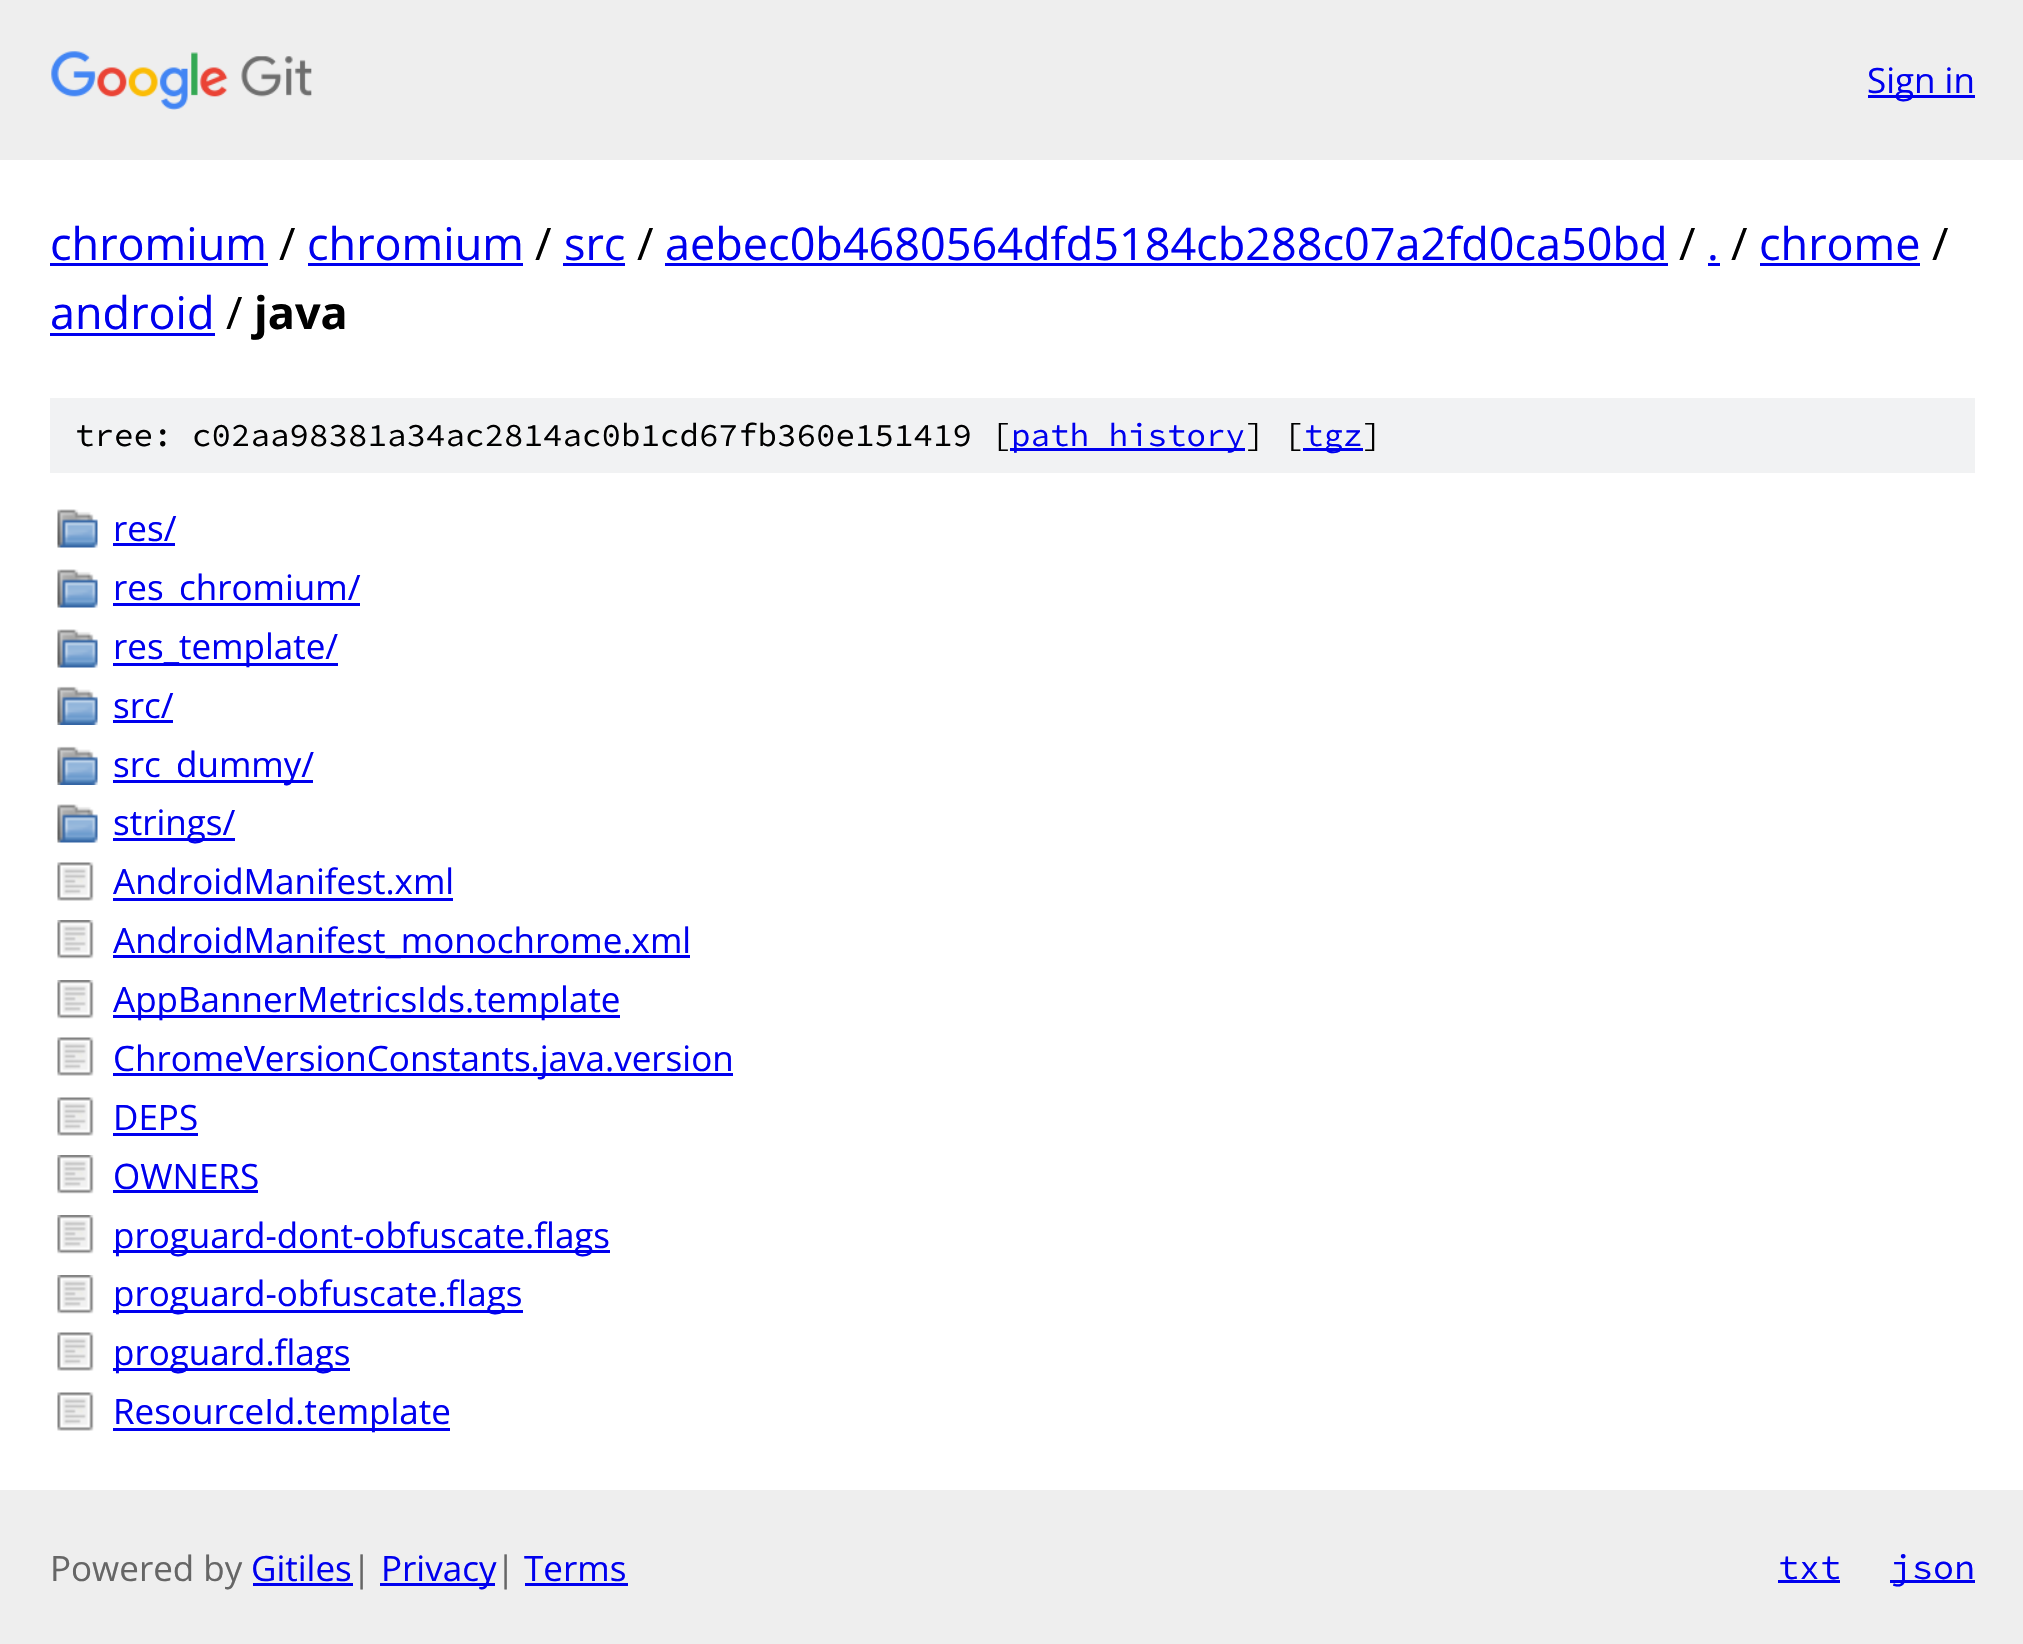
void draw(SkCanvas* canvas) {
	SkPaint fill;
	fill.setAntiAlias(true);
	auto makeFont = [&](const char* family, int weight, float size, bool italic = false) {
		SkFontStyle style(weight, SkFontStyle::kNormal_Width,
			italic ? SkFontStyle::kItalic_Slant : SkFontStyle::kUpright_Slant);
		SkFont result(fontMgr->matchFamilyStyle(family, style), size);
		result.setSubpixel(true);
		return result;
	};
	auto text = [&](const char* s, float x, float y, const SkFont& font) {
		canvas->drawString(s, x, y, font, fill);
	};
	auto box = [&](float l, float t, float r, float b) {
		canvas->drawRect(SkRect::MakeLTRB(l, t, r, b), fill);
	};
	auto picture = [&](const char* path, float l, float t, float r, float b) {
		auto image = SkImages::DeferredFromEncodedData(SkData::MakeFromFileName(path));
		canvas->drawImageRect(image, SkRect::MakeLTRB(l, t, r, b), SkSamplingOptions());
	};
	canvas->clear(0xFFFFFFFF);
	fill.setColor(0xFFEEEEEE);
	box(0, 0, 2023, 160);
	picture("image0.png", 51, 51, 312, 110);
	fill.setColor(0xFF0000EE);
	box(1868, 95, 1975, 98);
	box(50, 263, 268, 266);
	box(308, 263, 523, 266);
	box(563, 263, 625, 266);
	box(665, 263, 1668, 266);
	box(1708, 263, 1720, 266);
	box(1760, 263, 1920, 266);
	box(50, 333, 215, 336);
	fill.setColor(0xFFF1F2F3);
	box(50, 398, 1975, 473);
	fill.setColor(0xFF0000EE);
	box(1010, 448, 1245, 451);
	box(1303, 448, 1363, 451);
	picture("image1.png", 57, 509, 98, 548);
	box(113, 543, 175, 546);
	picture("image2.png", 57, 569, 98, 608);
	box(113, 603, 360, 606);
	picture("image1.png", 57, 629, 98, 668);
	box(113, 663, 338, 666);
	picture("image3.png", 57, 686, 98, 725);
	box(113, 720, 173, 723);
	picture("image3.png", 57, 746, 98, 785);
	box(113, 780, 313, 783);
	picture("image1.png", 57, 804, 98, 843);
	box(113, 838, 235, 841);
	picture("image4.png", 57, 862, 94, 901);
	box(113, 898, 453, 901);
	picture("image5.png", 57, 920, 94, 959);
	box(113, 955, 690, 958);
	picture("image5.png", 57, 980, 94, 1019);
	box(113, 1015, 620, 1018);
	picture("image4.png", 57, 1037, 94, 1076);
	box(113, 1073, 733, 1076);
	picture("image4.png", 57, 1097, 94, 1136);
	box(113, 1133, 198, 1136);
	picture("image6.png", 57, 1155, 94, 1194);
	box(113, 1190, 258, 1193);
	picture("image5.png", 57, 1215, 94, 1254);
	box(113, 1250, 610, 1253);
	picture("image5.png", 57, 1275, 94, 1314);
	box(113, 1310, 523, 1313);
	picture("image4.png", 57, 1332, 94, 1371);
	box(113, 1368, 350, 1371);
	picture("image4.png", 57, 1392, 94, 1431);
	box(113, 1428, 450, 1431);
	fill.setColor(0xFFEEEEEE);
	box(0, 1490, 2023, 1644);
	fill.setColor(0xFF0000EE);
	box(253, 1583, 353, 1586);
	box(380, 1583, 495, 1586);
	box(525, 1583, 628, 1586);
	box(1778, 1580, 1840, 1583);
	box(1890, 1580, 1975, 1583);
	auto font1 = makeFont("Open Sans", 400, 35);
	text("Sign in", 1867, 93, font1);
	auto font2 = makeFont("Open Sans", 400, 45);
	text("chromium", 50, 260, font2);
	fill.setColor(0xFF000000);
	text("/", 279, 260, font2);
	fill.setColor(0xFF0000EE);
	text("chromium", 307, 260, font2);
	fill.setColor(0xFF000000);
	text("/", 535, 260, font2);
	fill.setColor(0xFF0000EE);
	text("src", 564, 260, font2);
	fill.setColor(0xFF000000);
	text("/", 637, 260, font2);
	fill.setColor(0xFF0000EE);
	text("aebec0b4680564dfd5184cb288c07a2fd0ca50bd", 665, 260, font2);
	fill.setColor(0xFF000000);
	text("/", 1679, 260, font2);
	fill.setColor(0xFF0000EE);
	text(".", 1707, 260, font2);
	fill.setColor(0xFF000000);
	text("/", 1731, 260, font2);
	fill.setColor(0xFF0000EE);
	text("chrome", 1759, 260, font2);
	fill.setColor(0xFF000000);
	text("/", 1932, 260, font2);
	fill.setColor(0xFF0000EE);
	text("android", 50, 329, font2);
	fill.setColor(0xFF000000);
	text("/", 226, 329, font2);
	auto font3 = makeFont("Open Sans", 700, 45);
	text("java", 254, 329, font3);
	auto font4 = makeFont("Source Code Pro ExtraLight", 200, 32.5f);
	text("tree: c02aa98381a34ac2814ac0b1cd67fb360e151419 [", 75, 446, font4);
	fill.setColor(0xFF0000EE);
	text("path history", 1011, 446, font4);
	fill.setColor(0xFF000000);
	text("] [", 1245, 446, font4);
	fill.setColor(0xFF0000EE);
	text("tgz", 1304, 446, font4);
	fill.setColor(0xFF000000);
	text("]", 1362, 446, font4);
	fill.setColor(0xFF0000EE);
	text("res/", 113, 541, font1);
	text("res_chromium/", 113, 600, font1);
	text("res_template/", 113, 659, font1);
	text("src/", 113, 718, font1);
	text("src_dummy/", 113, 777, font1);
	text("strings/", 113, 835, font1);
	text("AndroidManifest.xml", 113, 894, font1);
	text("AndroidManifest_monochrome.xml", 113, 953, font1);
	text("AppBannerMetricsIds.template", 113, 1012, font1);
	text("ChromeVersionConstants.java.version", 113, 1071, font1);
	text("DEPS", 113, 1130, font1);
	text("OWNERS", 113, 1189, font1);
	text("proguard-dont-obfuscate.flags", 113, 1248, font1);
	text("proguard-obfuscate.flags", 113, 1306, font1);
	text("proguard.flags", 113, 1365, font1);
	text("ResourceId.template", 113, 1424, font1);
	fill.setColor(0xFF666666);
	text("Powered by", 50, 1581, font1);
	fill.setColor(0xFF0000EE);
	text("Gitiles", 251, 1581, font1);
	fill.setColor(0xFF666666);
	text("|", 352, 1581, font1);
	fill.setColor(0xFF0000EE);
	text("Privacy", 381, 1581, font1);
	fill.setColor(0xFF666666);
	text("|", 496, 1581, font1);
	fill.setColor(0xFF0000EE);
	text("Terms", 524, 1581, font1);
	auto font5 = makeFont("Source Code Pro ExtraLight", 200, 35);
	text("txt", 1778, 1579, font5);
	text("json", 1891, 1579, font5);
}
